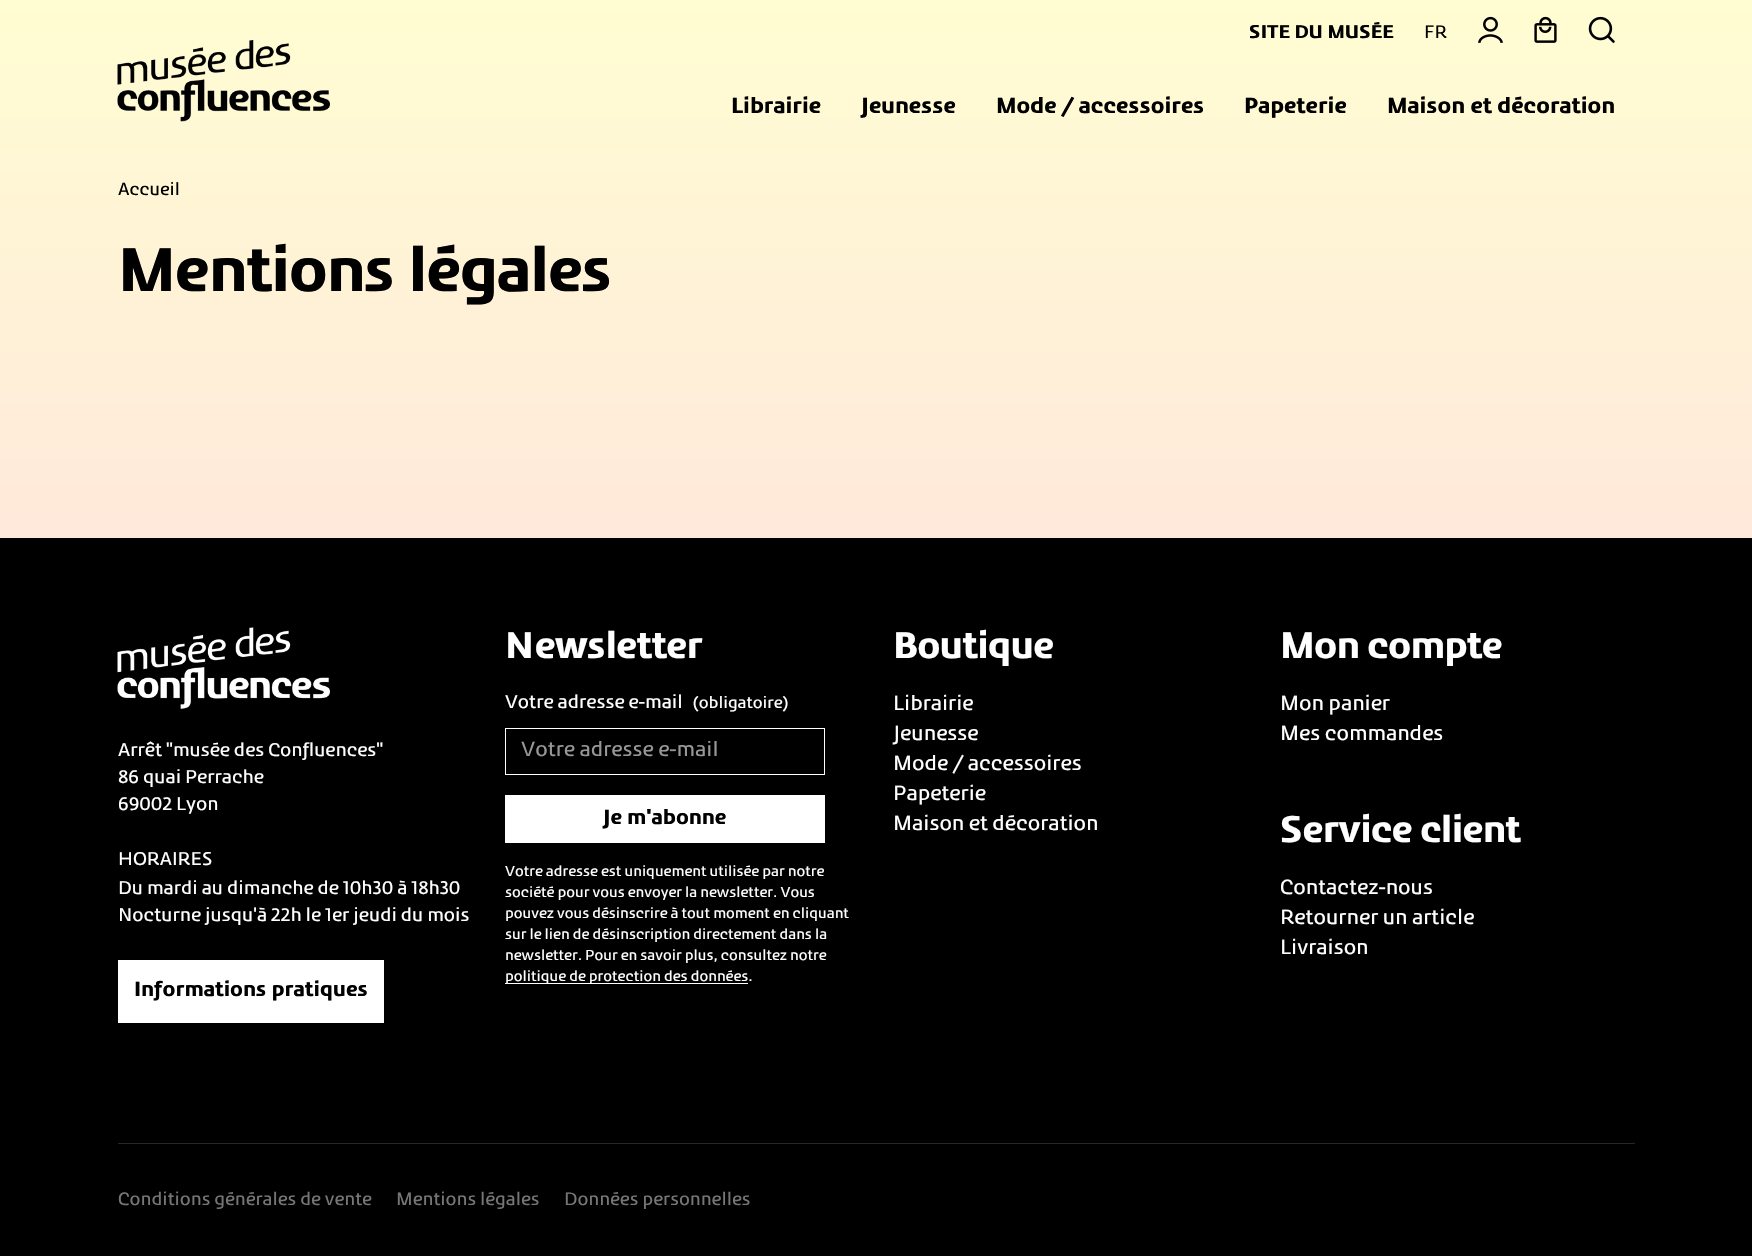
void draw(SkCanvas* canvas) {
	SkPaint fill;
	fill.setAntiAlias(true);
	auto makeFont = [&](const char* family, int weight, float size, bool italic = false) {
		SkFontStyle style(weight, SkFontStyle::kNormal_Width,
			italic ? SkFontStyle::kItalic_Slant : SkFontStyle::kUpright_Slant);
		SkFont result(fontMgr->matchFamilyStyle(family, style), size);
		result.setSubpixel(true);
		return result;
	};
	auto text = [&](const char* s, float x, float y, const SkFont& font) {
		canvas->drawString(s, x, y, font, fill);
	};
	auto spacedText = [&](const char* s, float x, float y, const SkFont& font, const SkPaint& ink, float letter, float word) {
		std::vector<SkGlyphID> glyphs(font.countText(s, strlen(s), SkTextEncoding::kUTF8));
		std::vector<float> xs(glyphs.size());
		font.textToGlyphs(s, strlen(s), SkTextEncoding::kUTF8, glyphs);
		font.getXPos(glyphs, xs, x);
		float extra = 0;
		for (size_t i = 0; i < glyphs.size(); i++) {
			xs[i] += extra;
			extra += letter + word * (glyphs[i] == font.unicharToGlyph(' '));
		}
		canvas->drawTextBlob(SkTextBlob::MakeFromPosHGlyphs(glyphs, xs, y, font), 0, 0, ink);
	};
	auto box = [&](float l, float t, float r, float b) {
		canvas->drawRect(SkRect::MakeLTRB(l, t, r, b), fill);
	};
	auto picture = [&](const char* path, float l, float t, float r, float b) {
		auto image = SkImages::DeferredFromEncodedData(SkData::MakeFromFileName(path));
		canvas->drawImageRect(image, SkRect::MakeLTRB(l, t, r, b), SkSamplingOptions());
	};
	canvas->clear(0xFFFFFFFF);
	{
		const SkColor colors[] = {0xFFFFFDD2, 0xFFFFCDE7};
		const float stops[] = {0, 1};
		const SkPoint ends[] = {{876, 0}, {876, 1256}};
		fill.setShader(SkGradientShader::MakeLinear(ends, colors, stops, 2, SkTileMode::kClamp));
		fill.setAlpha(255);
	}
	box(0, 0, 1752, 538);
	picture("image0.png", 117, 40, 330, 122);
	picture("image1.png", 1478, 16, 1503, 43);
	picture("image2.png", 1534, 16, 1557, 43);
	picture("image3.png", 1588, 16, 1615, 43);
	fill.setShader(nullptr);
	fill.setColor(0xFF000000);
	box(0, 538, 1752, 1256);
	picture("image4.png", 117, 627, 330, 709);
	fill.setColor(0xFFFFFFFF);
	box(118, 960, 384, 1023);
	fill.setStyle(SkPaint::kStroke_Style);
	fill.setStrokeWidth(1);
	canvas->drawRect(SkRect::MakeLTRB(505.5f, 728.5f, 824.5f, 774.5f), fill);
	fill.setStyle(SkPaint::kFill_Style);
	box(505, 795, 825, 843);
	box(505, 983, 748, 984);
	fill.setColor(0xFF272727);
	box(118, 1143, 1635, 1144);
	auto font1 = makeFont("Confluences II", 700, 18);
	fill.setColor(0xFF000000);
	text("SITE DU MUSÉE", 1249, 38, font1);
	auto font2 = makeFont("Confluences II", 400, 17.5f);
	text("FR", 1424, 38, font2);
	auto font3 = makeFont("Confluences II", 700, 21.25f);
	text("Librairie", 731, 113, font3);
	text("Jeunesse", 861, 113, font3);
	text("Mode / accessoires", 996, 113, font3);
	text("Papeterie", 1244, 113, font3);
	text("Maison et décoration", 1387, 113, font3);
	auto font4 = makeFont("Confluences II", 400, 17);
	text("Accueil", 118, 195, font4);
	auto font5 = makeFont("Confluences II", 700, 60);
	spacedText("Mentions légales", 118, 291, font5, fill, -1.25f, 0);
	auto font6 = makeFont("Confluences II", 400, 18);
	fill.setColor(0xFFFFFFFF);
	text("Arrêt \"musée des Confluences\"", 118, 756, font6);
	text("86 quai Perrache", 118, 783, font6);
	text("69002 Lyon", 118, 810, font6);
	text("HORAIRES", 118, 865, font6);
	text("Du mardi au dimanche de 10h30 à 18h30", 118, 894, font6);
	text("Nocturne jusqu'à 22h le 1er jeudi du mois", 118, 921, font6);
	auto font7 = makeFont("Confluences II", 700, 20);
	fill.setColor(0xFF000000);
	text("Informations pratiques", 134, 996, font7);
	auto font8 = makeFont("Confluences II", 700, 36);
	fill.setColor(0xFFFFFFFF);
	spacedText("Newsletter", 505, 658, font8, fill, -0.75f, 0);
	text("Votre adresse e-mail", 505, 708, font6);
	auto font9 = makeFont("Confluences II", 400, 15.75f);
	text("(obligatoire)", 693, 708, font9);
	canvas->save();
	canvas->clipRect(SkRect::MakeLTRB(521, 741, 809, 761));
	auto font10 = makeFont("Confluences II", 400, 20);
	fill.setColor(0xFF979797);
	text("Votre adresse e-mail", 521, 756, font10);
	canvas->restore();
	fill.setColor(0xFF000000);
	text("Je m'abonne", 603, 824, font7);
	auto font11 = makeFont("Confluences II", 400, 14);
	fill.setColor(0xFFFFFFFF);
	text("Votre adresse est uniquement utilisée par notre", 505, 876, font11);
	text("société pour vous envoyer la newsletter. Vous", 505, 897, font11);
	text("pouvez vous désinscrire à tout moment en cliquant", 505, 918, font11);
	text("sur le lien de désinscription directement dans la", 505, 939, font11);
	text("newsletter. Pour en savoir plus, consultez notre", 505, 960, font11);
	text("politique de protection des données.", 505, 981, font11);
	spacedText("Boutique", 893, 658, font8, fill, -0.75f, 0);
	text("Librairie", 893, 710, font10);
	text("Jeunesse", 893, 740, font10);
	text("Mode / accessoires", 893, 770, font10);
	text("Papeterie", 893, 800, font10);
	text("Maison et décoration", 893, 830, font10);
	spacedText("Mon compte", 1280, 658, font8, fill, -0.75f, 0);
	text("Mon panier", 1280, 710, font10);
	text("Mes commandes", 1280, 740, font10);
	spacedText("Service client", 1280, 842, font8, fill, -0.75f, 0);
	text("Contactez-nous", 1280, 894, font10);
	text("Retourner un article", 1280, 924, font10);
	text("Livraison", 1280, 954, font10);
	fill.setColor(0xFF767676);
	text("Conditions générales de vente", 118, 1205, font2);
	text("Mentions légales", 396, 1205, font2);
	text("Données personnelles", 564, 1205, font2);
}
